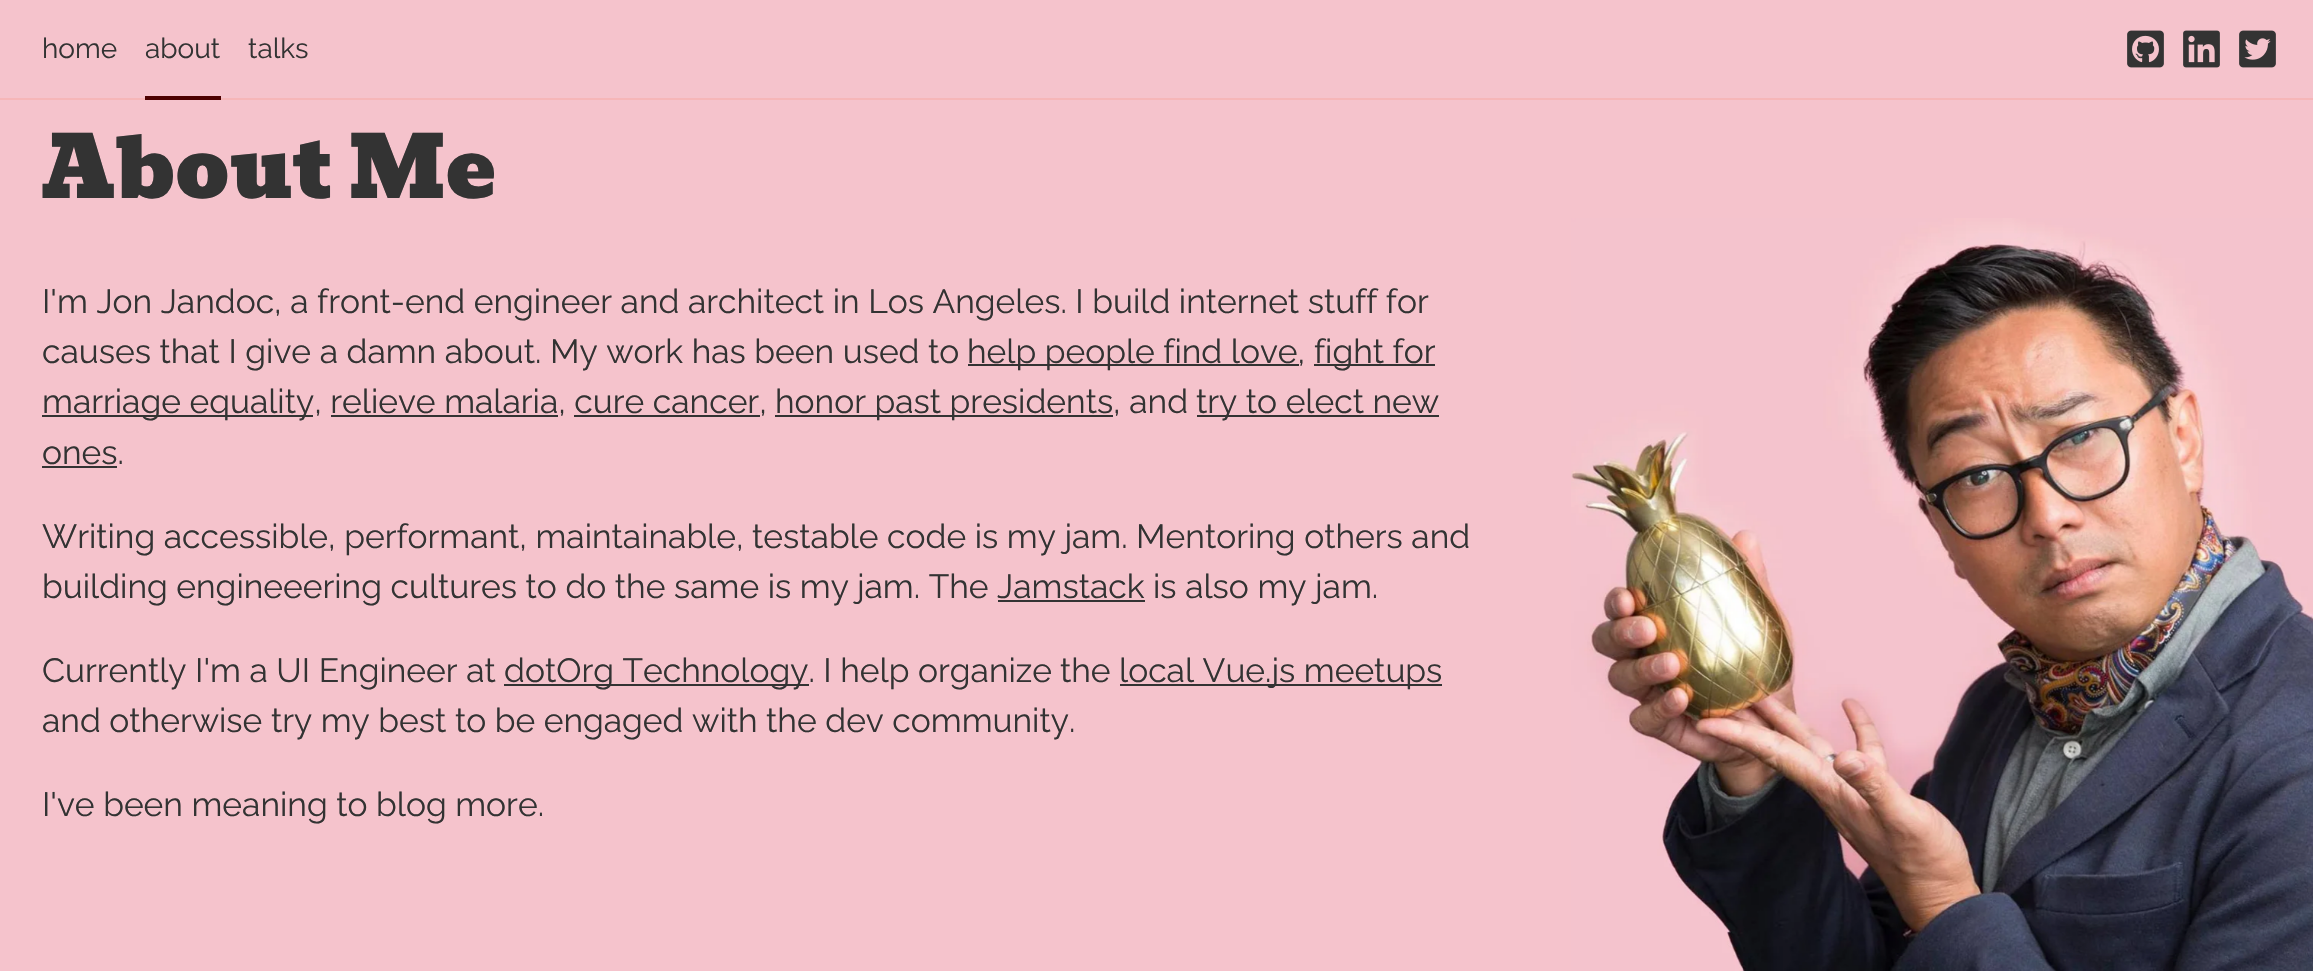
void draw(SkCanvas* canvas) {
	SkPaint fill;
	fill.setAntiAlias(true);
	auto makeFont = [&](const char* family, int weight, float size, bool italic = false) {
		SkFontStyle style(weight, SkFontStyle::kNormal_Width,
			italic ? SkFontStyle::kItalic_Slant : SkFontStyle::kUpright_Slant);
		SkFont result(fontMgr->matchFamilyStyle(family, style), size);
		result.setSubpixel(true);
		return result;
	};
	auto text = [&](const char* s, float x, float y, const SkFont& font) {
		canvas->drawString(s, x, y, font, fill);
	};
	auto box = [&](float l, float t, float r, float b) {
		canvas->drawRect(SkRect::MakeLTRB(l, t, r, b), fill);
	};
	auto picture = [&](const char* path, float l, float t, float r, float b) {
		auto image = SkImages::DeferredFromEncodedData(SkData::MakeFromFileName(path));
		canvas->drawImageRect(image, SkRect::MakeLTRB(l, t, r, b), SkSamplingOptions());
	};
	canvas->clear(0xFFF5C3CC);
	fill.setColor(0xFFF6B6B8);
	box(0, 98, 2313, 100);
	fill.setColor(0xFF4D0000);
	box(145, 96, 221, 100);
	picture("image0.png", 2127, 30, 2164, 68);
	picture("image1.png", 2183, 30, 2220, 68);
	picture("image2.png", 2239, 30, 2276, 68);
	fill.setColor(0xFF333333);
	box(968, 364, 1299, 366);
	box(1314, 364, 1435, 366);
	box(42, 415, 313, 417);
	box(775, 415, 1113, 417);
	box(1197, 415, 1439, 417);
	box(331, 415, 558, 417);
	box(574, 415, 760, 417);
	box(42, 466, 117, 468);
	box(998, 600, 1145, 602);
	box(504, 684, 809, 686);
	box(1120, 684, 1442, 686);
	picture("image3.png", 1571, 218, 2313, 971);
	auto font1 = makeFont("Raleway", 400, 28);
	text("home", 42, 58, font1);
	text("about", 145, 58, font1);
	text("talks", 248, 58, font1);
	auto font2 = makeFont("Bevan", 400, 84);
	text("About Me", 42, 198, font2);
	auto font3 = makeFont("Raleway", 400, 33.6f);
	text("I'm Jon Jandoc, a front-end engineer and architect in Los Angeles. I build internet stuff for", 42, 313, font3);
	text("causes that I give a damn about. My work has been used to", 42, 363, font3);
	text("help people find love,", 967, 363, font3);
	text("fight for", 1314, 363, font3);
	text("marriage equality, relieve malaria, cure cancer,", 42, 413, font3);
	text("honor past presidents, and", 775, 413, font3);
	text("try to elect new", 1196, 413, font3);
	text("ones.", 42, 464, font3);
	text("Writing accessible, performant, maintainable, testable code is my jam. Mentoring others and", 42, 548, font3);
	text("building engineeering cultures to do the same is my", 42, 598, font3);
	text("jam. The Jamstack is also my jam.", 857, 598, font3);
	text("Currently I'm a UI Engineer at", 42, 682, font3);
	text("dotOrg Technology. I help organize", 504, 682, font3);
	text("the", 1060, 682, font3);
	text("local Vue.js meetups", 1119, 682, font3);
	text("and otherwise try my best to be engaged with the dev community.", 42, 732, font3);
	text("I've been meaning to blog more.", 42, 816, font3);
}
